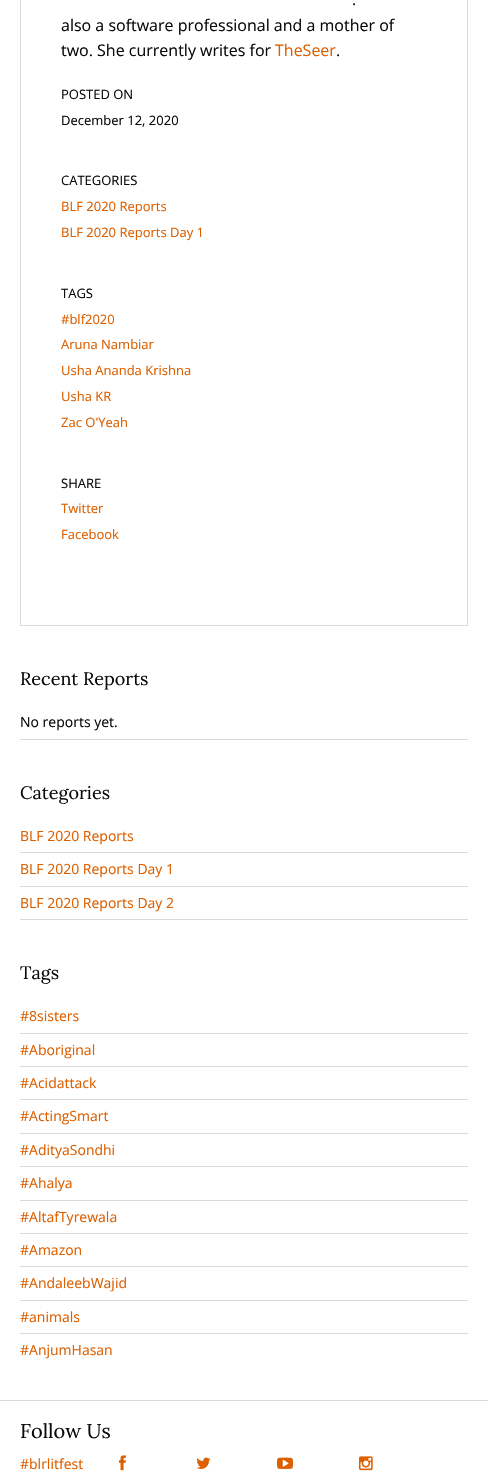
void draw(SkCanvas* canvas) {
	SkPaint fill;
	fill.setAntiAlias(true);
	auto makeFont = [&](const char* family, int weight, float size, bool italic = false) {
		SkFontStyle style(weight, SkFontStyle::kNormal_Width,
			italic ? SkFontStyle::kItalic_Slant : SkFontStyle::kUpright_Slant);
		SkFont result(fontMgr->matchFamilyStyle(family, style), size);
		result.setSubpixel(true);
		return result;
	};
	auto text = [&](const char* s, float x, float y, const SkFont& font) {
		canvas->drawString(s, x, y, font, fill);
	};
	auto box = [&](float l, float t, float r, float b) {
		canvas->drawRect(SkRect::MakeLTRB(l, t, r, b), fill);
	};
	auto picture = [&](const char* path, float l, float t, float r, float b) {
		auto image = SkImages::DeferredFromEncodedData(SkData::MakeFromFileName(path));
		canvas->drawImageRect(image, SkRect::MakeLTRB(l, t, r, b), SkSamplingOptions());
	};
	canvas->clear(0xFFFFFFFF);
	fill.setStyle(SkPaint::kStroke_Style);
	fill.setStrokeWidth(1);
	fill.setColor(0xFFD9D9D9);
	canvas->drawRect(SkRect::MakeLTRB(20.5f, -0.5f, 467.5f, 625.5f), fill);
	fill.setStyle(SkPaint::kFill_Style);
	box(20, 739, 468, 740);
	box(20, 852, 468, 853);
	box(20, 886, 468, 887);
	box(20, 919, 468, 920);
	box(20, 1033, 468, 1034);
	box(20, 1066, 468, 1067);
	box(20, 1099, 468, 1100);
	box(20, 1133, 468, 1134);
	box(20, 1166, 468, 1167);
	box(20, 1200, 468, 1201);
	box(20, 1233, 468, 1234);
	box(20, 1266, 468, 1267);
	box(20, 1300, 468, 1301);
	box(20, 1333, 468, 1334);
	box(0, 1400, 488, 1401);
	picture("image0.png", 119, 1455, 126, 1471);
	picture("image1.png", 196, 1457, 211, 1469);
	picture("image2.png", 277, 1457, 293, 1469);
	picture("image3.png", 359, 1456, 373, 1471);
	auto font1 = makeFont("Open Sans", 400, 16);
	fill.setColor(0xFF0A0A0A);
	text(".", 352, 5, font1);
	text("also a software professional and a mother of", 61, 31, font1);
	text("two. She currently writes for", 61, 56, font1);
	fill.setColor(0xFFDC5F00);
	text("TheSeer", 275, 56, font1);
	fill.setColor(0xFF0A0A0A);
	text(".", 336, 56, font1);
	auto font2 = makeFont("Open Sans", 400, 13);
	text("POSTED ON", 61, 99, font2);
	text("December 12, 2020", 61, 125, font2);
	text("CATEGORIES", 61, 185, font2);
	fill.setColor(0xFFDC5F00);
	text("BLF 2020 Reports", 61, 211, font2);
	text("BLF 2020 Reports Day 1", 61, 237, font2);
	fill.setColor(0xFF0A0A0A);
	text("TAGS", 61, 298, font2);
	fill.setColor(0xFFDC5F00);
	text("#blf2020", 61, 324, font2);
	text("Aruna Nambiar", 61, 349, font2);
	text("Usha Ananda Krishna", 61, 375, font2);
	text("Usha KR", 61, 401, font2);
	text("Zac O'Yeah", 61, 427, font2);
	fill.setColor(0xFF0A0A0A);
	text("SHARE", 61, 488, font2);
	fill.setColor(0xFFDC5F00);
	text("Twitter", 61, 513, font2);
	text("Facebook", 61, 539, font2);
	auto font3 = makeFont("Lora", 400, 18);
	fill.setColor(0xFF0A0A0A);
	text("Recent Reports", 20, 685, font3);
	auto font4 = makeFont("Open Sans", 400, 14);
	text("No reports yet.", 20, 727, font4);
	text("Categories", 20, 799, font3);
	fill.setColor(0xFFDC5F00);
	text("BLF 2020 Reports", 20, 841, font4);
	text("BLF 2020 Reports Day 1", 20, 874, font4);
	text("BLF 2020 Reports Day 2", 20, 908, font4);
	fill.setColor(0xFF0A0A0A);
	text("Tags", 20, 979, font3);
	fill.setColor(0xFFDC5F00);
	text("#8sisters", 20, 1021, font4);
	text("#Aboriginal", 20, 1055, font4);
	text("#Acidattack", 20, 1088, font4);
	text("#ActingSmart", 20, 1121, font4);
	text("#AdityaSondhi", 20, 1155, font4);
	text("#Ahalya", 20, 1188, font4);
	text("#AltafTyrewala", 20, 1222, font4);
	text("#Amazon", 20, 1255, font4);
	text("#AndaleebWajid", 20, 1288, font4);
	text("#animals", 20, 1322, font4);
	text("#AnjumHasan", 20, 1355, font4);
	auto font5 = makeFont("Lora", 400, 20);
	fill.setColor(0xFF0A0A0A);
	text("Follow Us", 20, 1438, font5);
	fill.setColor(0xFFDC5F00);
	text("#blrlitfest", 20, 1469, font4);
}
